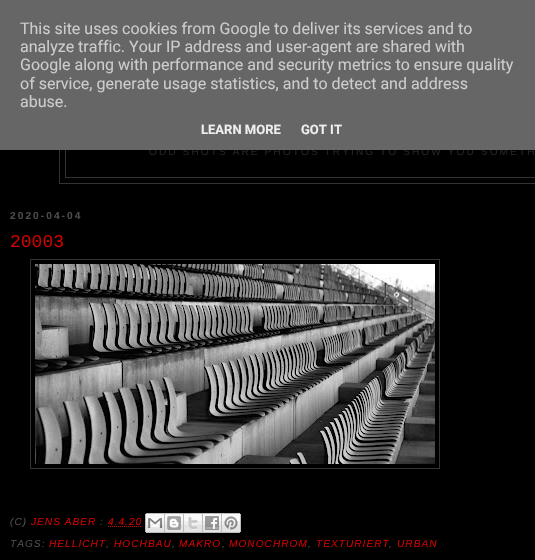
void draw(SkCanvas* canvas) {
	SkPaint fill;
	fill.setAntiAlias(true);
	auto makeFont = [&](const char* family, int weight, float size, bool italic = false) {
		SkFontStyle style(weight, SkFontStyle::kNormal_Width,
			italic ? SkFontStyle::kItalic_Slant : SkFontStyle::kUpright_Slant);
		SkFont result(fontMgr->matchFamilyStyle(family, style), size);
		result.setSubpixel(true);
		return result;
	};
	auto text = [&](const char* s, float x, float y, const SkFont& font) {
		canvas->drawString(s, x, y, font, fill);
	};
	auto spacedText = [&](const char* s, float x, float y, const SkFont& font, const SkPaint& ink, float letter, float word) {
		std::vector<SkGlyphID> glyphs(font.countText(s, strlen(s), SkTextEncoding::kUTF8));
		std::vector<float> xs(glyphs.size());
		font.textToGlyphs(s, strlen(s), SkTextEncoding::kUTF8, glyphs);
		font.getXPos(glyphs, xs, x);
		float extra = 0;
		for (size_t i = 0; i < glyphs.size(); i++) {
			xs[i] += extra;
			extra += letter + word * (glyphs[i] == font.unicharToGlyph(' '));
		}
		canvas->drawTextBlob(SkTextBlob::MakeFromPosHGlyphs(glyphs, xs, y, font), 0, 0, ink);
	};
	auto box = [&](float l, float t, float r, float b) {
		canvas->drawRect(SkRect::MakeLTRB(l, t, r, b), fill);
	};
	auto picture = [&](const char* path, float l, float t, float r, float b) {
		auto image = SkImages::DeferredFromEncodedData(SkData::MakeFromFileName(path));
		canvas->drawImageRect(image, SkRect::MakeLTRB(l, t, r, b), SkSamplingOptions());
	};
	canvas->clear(0xFF000000);
	fill.setStyle(SkPaint::kStroke_Style);
	fill.setStrokeWidth(1);
	fill.setColor(0xFF333333);
	canvas->drawRect(SkRect::MakeLTRB(59.5f, 40.5f, 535.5f, 183.5f), fill);
	canvas->drawRect(SkRect::MakeLTRB(65.5f, 46.5f, 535.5f, 177.5f), fill);
	canvas->drawRect(SkRect::MakeLTRB(30.5f, 259.5f, 439.5f, 468.5f), fill);
	picture("image0.png", 35, 264, 435, 464);
	fill.setColor(0xFFCC0000);
	fill.setPathEffect(SkDashPathEffect::Make({{1, 1}}, 0));
	canvas->drawPath(SkPathBuilder().moveTo(108, 526.5f).lineTo(142, 526.5f).detach(), fill);
	fill.setPathEffect(nullptr);
	picture("image1.png", 145, 513, 165, 533);
	picture("image2.png", 165, 513, 184, 533);
	picture("image3.png", 184, 513, 203, 533);
	picture("image4.png", 203, 513, 222, 533);
	picture("image5.png", 222, 513, 241, 533);
	auto font1 = makeFont("Liberation Sans", 400, 10.15f);
	fill.setStyle(SkPaint::kFill_Style);
	fill.setColor(0xFF222222);
	spacedText("ODD SHOTS ARE PHOTOS TRYING TO SHOW YOU SOMETH", 149, 155, font1, fill, 2.05f, 0);
	fill.setColor(0xFF666666);
	box(0, 0, 535, 150);
	auto font2 = makeFont("Roboto", 700, 13);
	fill.setColor(0xFFEEEEEE);
	text("GOT IT", 301, 134, font2);
	text("LEARN MORE", 201, 134, font2);
	auto font3 = makeFont("Roboto", 400, 16);
	fill.setColor(0xFFCCCCCC);
	text("abuse.", 20, 107, font3);
	text("of service, generate usage statistics, and to detect and address", 20, 89, font3);
	text("Google along with performance and security metrics to ensure quality", 20, 70, font3);
	text("analyze traffic. Your IP address and user-agent are shared with", 20, 52, font3);
	text("This site uses cookies from Google to deliver its services and to", 20, 34, font3);
	auto font4 = makeFont("Liberation Sans", 700, 10.15f);
	fill.setColor(0xFF4C4C4C);
	spacedText("2020-04-04", 10, 219, font4, fill, 2.05f, 0);
	auto font5 = makeFont("Liberation Mono", 400, 18);
	fill.setColor(0xFFCC0000);
	text("20003", 10, 247, font5);
	auto font6 = makeFont("Liberation Sans", 400, 10.15f, true);
	fill.setColor(0xFF4C4C4C);
	spacedText("(C)", 10, 525, font6, fill, 1, 0);
	fill.setColor(0xFFCC0000);
	spacedText("JENS ABER", 31, 525, font6, fill, 1, 0);
	fill.setColor(0xFF4C4C4C);
	spacedText(":", 100, 525, font6, fill, 1, 0);
	fill.setColor(0xFFCC0000);
	spacedText("4.4.20", 108, 525, font6, fill, 1, 0);
	fill.setColor(0xFF4C4C4C);
	spacedText("TAGS:", 10, 547, font6, fill, 1, 0);
	fill.setColor(0xFFCC0000);
	spacedText("HELLICHT", 49, 547, font6, fill, 1, 0);
	fill.setColor(0xFF4C4C4C);
	spacedText(",", 106, 547, font6, fill, 1, 0);
	fill.setColor(0xFFCC0000);
	spacedText("HOCHBAU", 114, 547, font6, fill, 1, 0);
	fill.setColor(0xFF4C4C4C);
	spacedText(",", 172, 547, font6, fill, 1, 0);
	fill.setColor(0xFFCC0000);
	spacedText("MAKRO", 179, 547, font6, fill, 1, 0);
	fill.setColor(0xFF4C4C4C);
	spacedText(",", 222, 547, font6, fill, 1, 0);
	fill.setColor(0xFFCC0000);
	spacedText("MONOCHROM", 229, 547, font6, fill, 1, 0);
	fill.setColor(0xFF4C4C4C);
	spacedText(",", 308, 547, font6, fill, 1, 0);
	fill.setColor(0xFFCC0000);
	spacedText("TEXTURIERT", 316, 547, font6, fill, 1, 0);
	fill.setColor(0xFF4C4C4C);
	spacedText(",", 389, 547, font6, fill, 1, 0);
	fill.setColor(0xFFCC0000);
	spacedText("URBAN", 397, 547, font6, fill, 1, 0);
}
